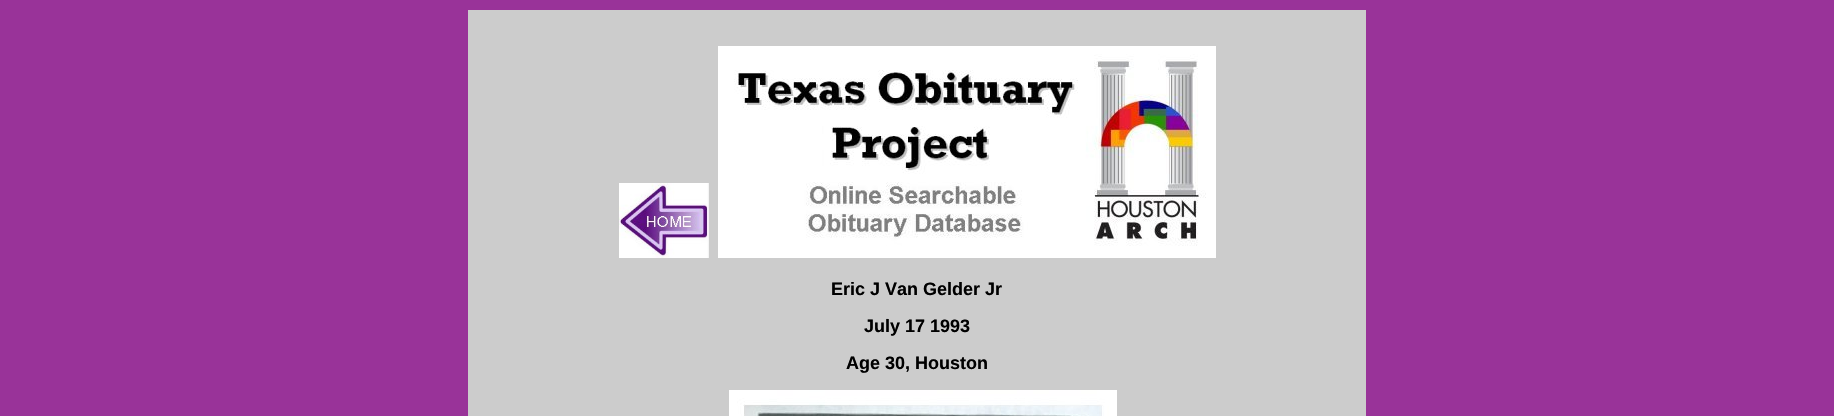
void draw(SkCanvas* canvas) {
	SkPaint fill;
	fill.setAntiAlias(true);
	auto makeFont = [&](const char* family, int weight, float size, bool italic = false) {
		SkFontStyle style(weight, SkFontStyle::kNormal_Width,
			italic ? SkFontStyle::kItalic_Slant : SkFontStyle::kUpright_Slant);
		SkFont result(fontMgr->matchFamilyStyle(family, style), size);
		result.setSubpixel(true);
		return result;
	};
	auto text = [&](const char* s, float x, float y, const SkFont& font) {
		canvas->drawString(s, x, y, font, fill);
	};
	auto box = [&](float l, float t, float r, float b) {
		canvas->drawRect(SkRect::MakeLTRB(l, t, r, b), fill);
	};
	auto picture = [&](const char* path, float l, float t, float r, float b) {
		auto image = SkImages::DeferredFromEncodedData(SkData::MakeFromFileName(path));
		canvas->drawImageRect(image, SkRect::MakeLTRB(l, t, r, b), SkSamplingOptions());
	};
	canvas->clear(0xFF993399);
	fill.setColor(0xFFCCCCCC);
	box(468, 10, 1366, 416);
	picture("image0.png", 619, 183, 709, 258);
	picture("image1.png", 718, 46, 1216, 258);
	picture("image2.png", 729, 390, 1117, 416);
	auto font1 = makeFont("Liberation Sans", 700, 18);
	fill.setColor(0xFF000000);
	text("Eric J Van Gelder Jr", 831, 295, font1);
	text("July 17 1993", 864, 332, font1);
	text("Age 30, Houston", 846, 369, font1);
}
